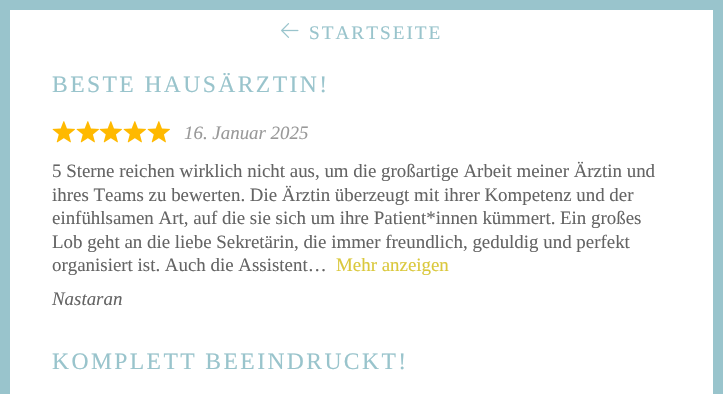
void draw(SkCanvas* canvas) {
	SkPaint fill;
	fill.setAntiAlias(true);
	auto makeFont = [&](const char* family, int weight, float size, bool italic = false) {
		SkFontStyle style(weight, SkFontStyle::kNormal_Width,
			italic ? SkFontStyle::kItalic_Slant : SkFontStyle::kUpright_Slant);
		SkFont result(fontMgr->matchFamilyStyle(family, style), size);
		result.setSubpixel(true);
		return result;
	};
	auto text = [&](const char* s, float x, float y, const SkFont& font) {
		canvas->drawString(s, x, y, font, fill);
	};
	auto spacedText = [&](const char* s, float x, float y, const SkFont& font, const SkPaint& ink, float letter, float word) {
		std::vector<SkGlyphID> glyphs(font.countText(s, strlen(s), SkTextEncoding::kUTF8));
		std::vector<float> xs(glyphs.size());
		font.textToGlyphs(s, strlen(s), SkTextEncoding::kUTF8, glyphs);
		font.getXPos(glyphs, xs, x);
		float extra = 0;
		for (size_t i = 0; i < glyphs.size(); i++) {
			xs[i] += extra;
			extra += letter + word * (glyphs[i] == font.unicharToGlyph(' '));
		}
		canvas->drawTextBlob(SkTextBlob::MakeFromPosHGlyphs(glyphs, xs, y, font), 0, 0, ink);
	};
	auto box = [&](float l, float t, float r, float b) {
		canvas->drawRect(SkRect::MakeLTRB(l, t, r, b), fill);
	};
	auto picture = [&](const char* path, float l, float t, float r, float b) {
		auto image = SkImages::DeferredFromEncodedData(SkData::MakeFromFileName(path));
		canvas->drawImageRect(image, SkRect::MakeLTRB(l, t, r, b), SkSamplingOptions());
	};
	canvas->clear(0xFF99C4CC);
	fill.setColor(0xFFFFFFFF);
	box(10, 10, 713, 394);
	picture("image0.png", 281, 23, 299, 38);
	picture("image1.png", 52, 121, 75, 143);
	picture("image1.png", 76, 121, 99, 143);
	picture("image1.png", 99, 121, 122, 143);
	picture("image1.png", 123, 121, 146, 143);
	picture("image1.png", 147, 121, 170, 143);
	auto font1 = makeFont("Liberation Serif", 400, 19.25f);
	fill.setColor(0xFF99C4CC);
	spacedText("STARTSEITE", 309, 39, font1, fill, 2, 0);
	auto font2 = makeFont("Liberation Serif", 400, 23.6f);
	spacedText("BESTE HAUSÄRZTIN!", 52, 92, font2, fill, 2.4f, 0);
	auto font3 = makeFont("Liberation Serif", 400, 18.9f, true);
	fill.setColor(0xFF999999);
	text("16. Januar 2025", 184, 139, font3);
	auto font4 = makeFont("Liberation Serif", 400, 18.9f);
	fill.setColor(0xFF646464);
	text("5 Sterne reichen wirklich nicht aus, um die großartige Arbeit meiner Ärztin und", 52, 177, font4);
	text("ihres Teams zu bewerten. Die Ärztin überzeugt mit ihrer Kompetenz und der", 52, 201, font4);
	text("einfühlsamen Art, auf die sie sich um ihre Patient*innen kümmert. Ein großes", 52, 224, font4);
	text("Lob geht an die liebe Sekretärin, die immer freundlich, geduldig und perfekt", 52, 248, font4);
	text("organisiert ist. Auch die Assistent…", 52, 271, font4);
	fill.setColor(0xFFDAC83C);
	text("Mehr anzeigen", 336, 271, font4);
	fill.setColor(0xFF646464);
	text("Nastaran", 52, 305, font3);
	fill.setColor(0xFF99C4CC);
	spacedText("KOMPLETT BEEINDRUCKT!", 52, 369, font2, fill, 2.4f, 0);
}
